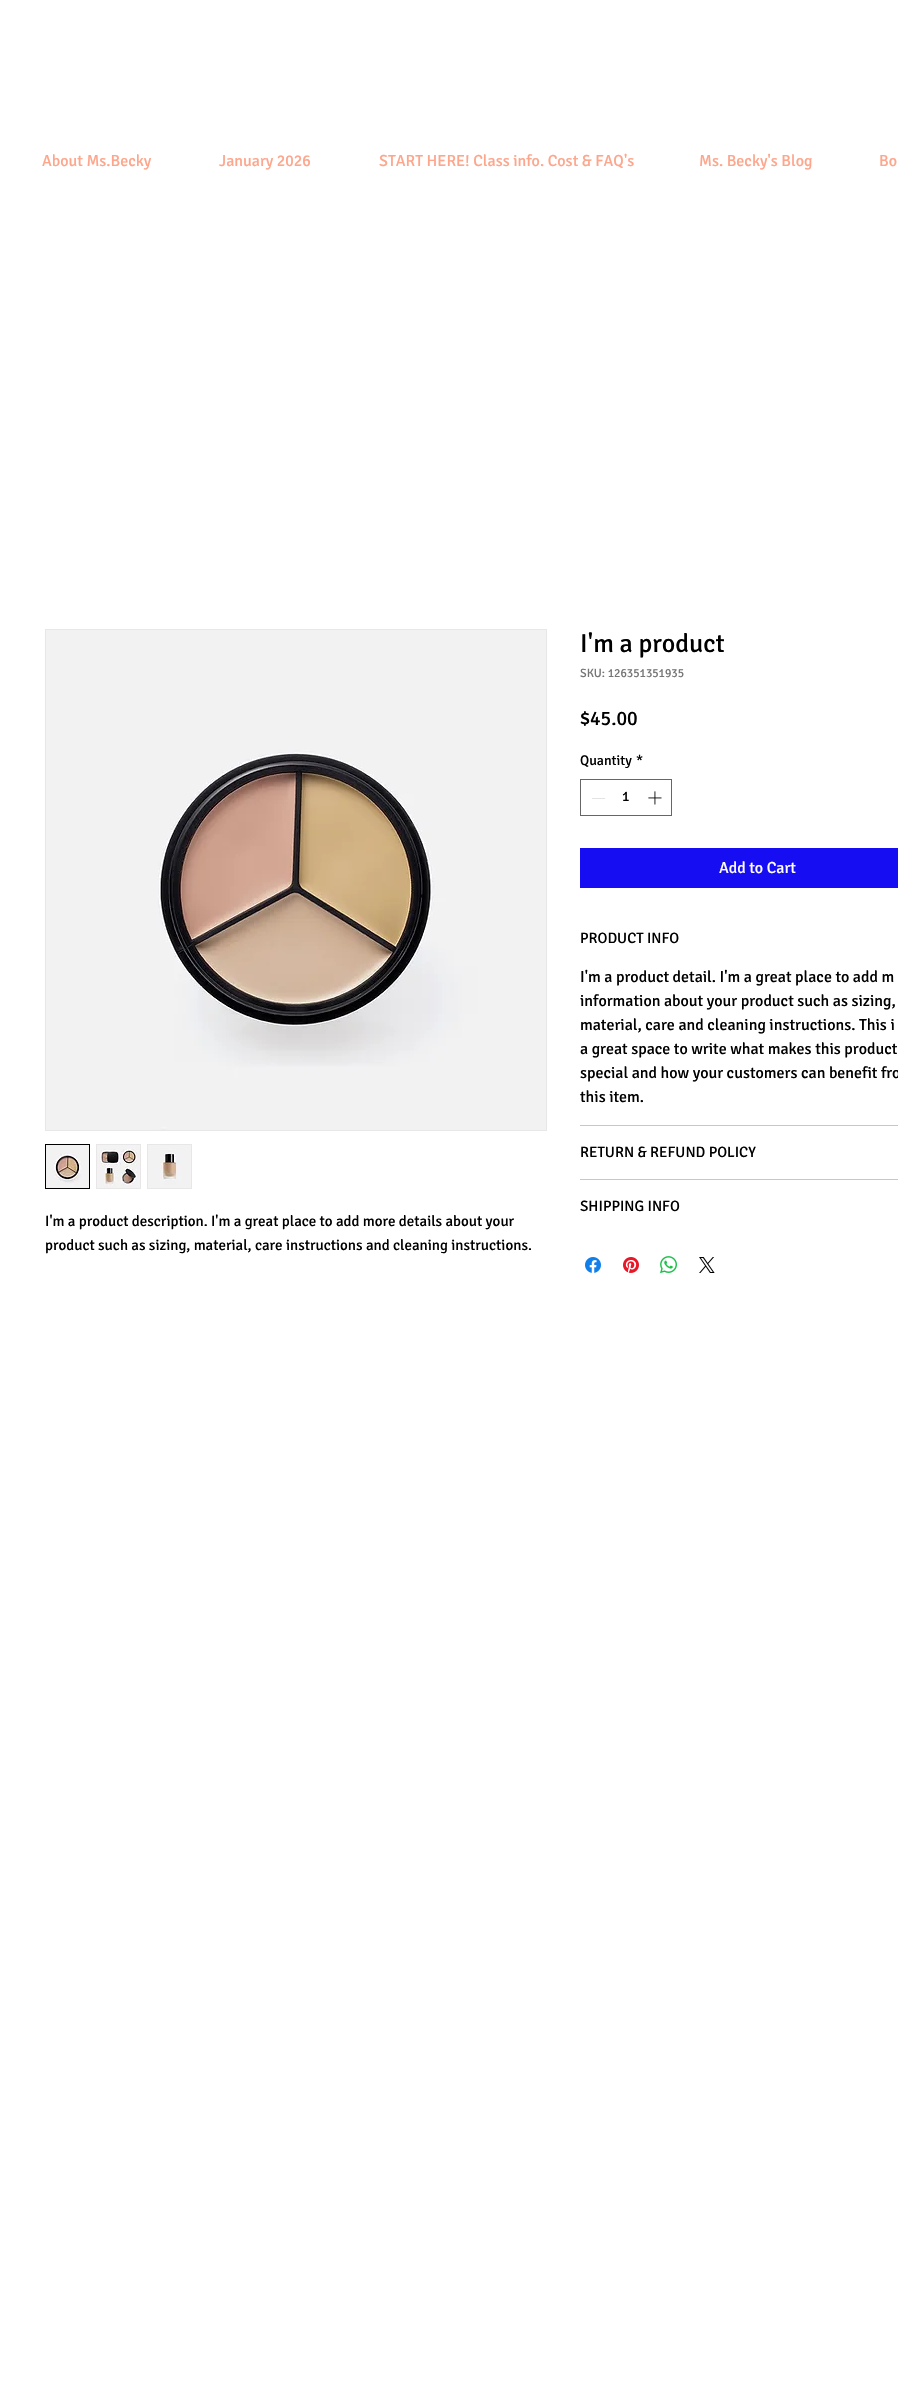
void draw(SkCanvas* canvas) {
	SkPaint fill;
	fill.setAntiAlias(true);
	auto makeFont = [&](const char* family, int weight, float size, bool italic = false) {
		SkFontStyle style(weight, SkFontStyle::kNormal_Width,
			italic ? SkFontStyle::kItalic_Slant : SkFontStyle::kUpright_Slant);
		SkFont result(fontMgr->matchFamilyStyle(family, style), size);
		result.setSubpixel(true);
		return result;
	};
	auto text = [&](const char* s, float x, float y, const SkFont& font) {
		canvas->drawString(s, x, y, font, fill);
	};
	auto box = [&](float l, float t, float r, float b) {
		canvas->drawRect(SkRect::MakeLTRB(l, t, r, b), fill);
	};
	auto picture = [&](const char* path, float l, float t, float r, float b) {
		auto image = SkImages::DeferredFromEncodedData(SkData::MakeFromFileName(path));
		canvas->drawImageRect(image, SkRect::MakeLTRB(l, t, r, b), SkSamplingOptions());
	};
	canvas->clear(0xFFFFFFFF);
	fill.setStyle(SkPaint::kStroke_Style);
	fill.setStrokeWidth(1);
	fill.setColor(0xFF666666);
	canvas->drawRect(SkRect::MakeLTRB(580.5f, 779.5f, 671.5f, 815.5f), fill);
	fill.setStyle(SkPaint::kFill_Style);
	fill.setColor(0xFFE3E3E3);
	box(592, 798, 605, 799);
	picture("image0.png", 648, 791, 662, 805);
	fill.setColor(0xFF170DF2);
	box(580, 848, 898, 888);
	fill.setColor(0xFFC7C7C7);
	box(580, 1125, 898, 1126);
	box(580, 1179, 898, 1180);
	picture("image1.png", 585, 1257, 601, 1273);
	picture("image2.png", 623, 1257, 639, 1273);
	picture("image3.png", 660, 1256, 677, 1273);
	picture("image4.png", 699, 1257, 715, 1273);
	fill.setStyle(SkPaint::kStroke_Style);
	fill.setColor(0xFFE8E6E6);
	canvas->drawRect(SkRect::MakeLTRB(45.5f, 629.5f, 546.5f, 1130.5f), fill);
	picture("image5.png", 46, 630, 546, 1130);
	fill.setColor(0xFF000000);
	canvas->drawRect(SkRect::MakeLTRB(45.5f, 1144.5f, 89.5f, 1188.5f), fill);
	picture("image6.png", 46, 1145, 89, 1188);
	fill.setStyle(SkPaint::kFill_Style);
	fill.setColor(0xFFE8E6E6);
	box(96, 1144, 141, 1189);
	picture("image7.png", 97, 1145, 140, 1188);
	box(147, 1144, 192, 1189);
	picture("image8.png", 148, 1145, 191, 1188);
	auto font1 = makeFont("Signika", 400, 16);
	fill.setColor(0xFFFDA68C);
	text("About Ms.Becky", 42, 166, font1);
	text("January 2026", 219, 166, font1);
	text("START HERE! Class info. Cost & FAQ's", 379, 166, font1);
	text("Ms. Becky's Blog", 699, 166, font1);
	text("Bo", 879, 166, font1);
	auto font2 = makeFont("Signika", 400, 26);
	fill.setColor(0xFF000000);
	text("I'm a product", 580, 652, font2);
	auto font3 = makeFont("Signika", 400, 12);
	fill.setColor(0xFF757575);
	text("SKU: 126351351935", 580, 677, font3);
	auto font4 = makeFont("Signika", 400, 20);
	fill.setColor(0xFF000000);
	text("$45.00", 580, 725, font4);
	auto font5 = makeFont("Signika", 400, 14);
	text("Quantity", 580, 765, font5);
	text("*", 636, 765, font5);
	text("1", 622, 801, font5);
	fill.setColor(0xFFFFFFFF);
	text("Add to Cart", 719, 873, font1);
	auto font6 = makeFont("Signika", 400, 15);
	fill.setColor(0xFF000000);
	text("PRODUCT INFO", 580, 943, font6);
	text("I'm a product detail. I'm a great place to add m", 580, 982, font1);
	text("information about your product such as sizing,", 580, 1006, font1);
	text("material, care and cleaning instructions. This i", 580, 1030, font1);
	text("a great space to write what makes this product", 580, 1054, font1);
	text("special and how your customers can benefit fro", 580, 1078, font1);
	text("this item.", 580, 1102, font1);
	text("RETURN & REFUND POLICY", 580, 1157, font6);
	text("SHIPPING INFO", 580, 1211, font6);
	text("I'm a product description. I'm a great place to add more details about your", 45, 1226, font6);
	text("product such as sizing, material, care instructions and cleaning instructions.", 45, 1250, font6);
}
